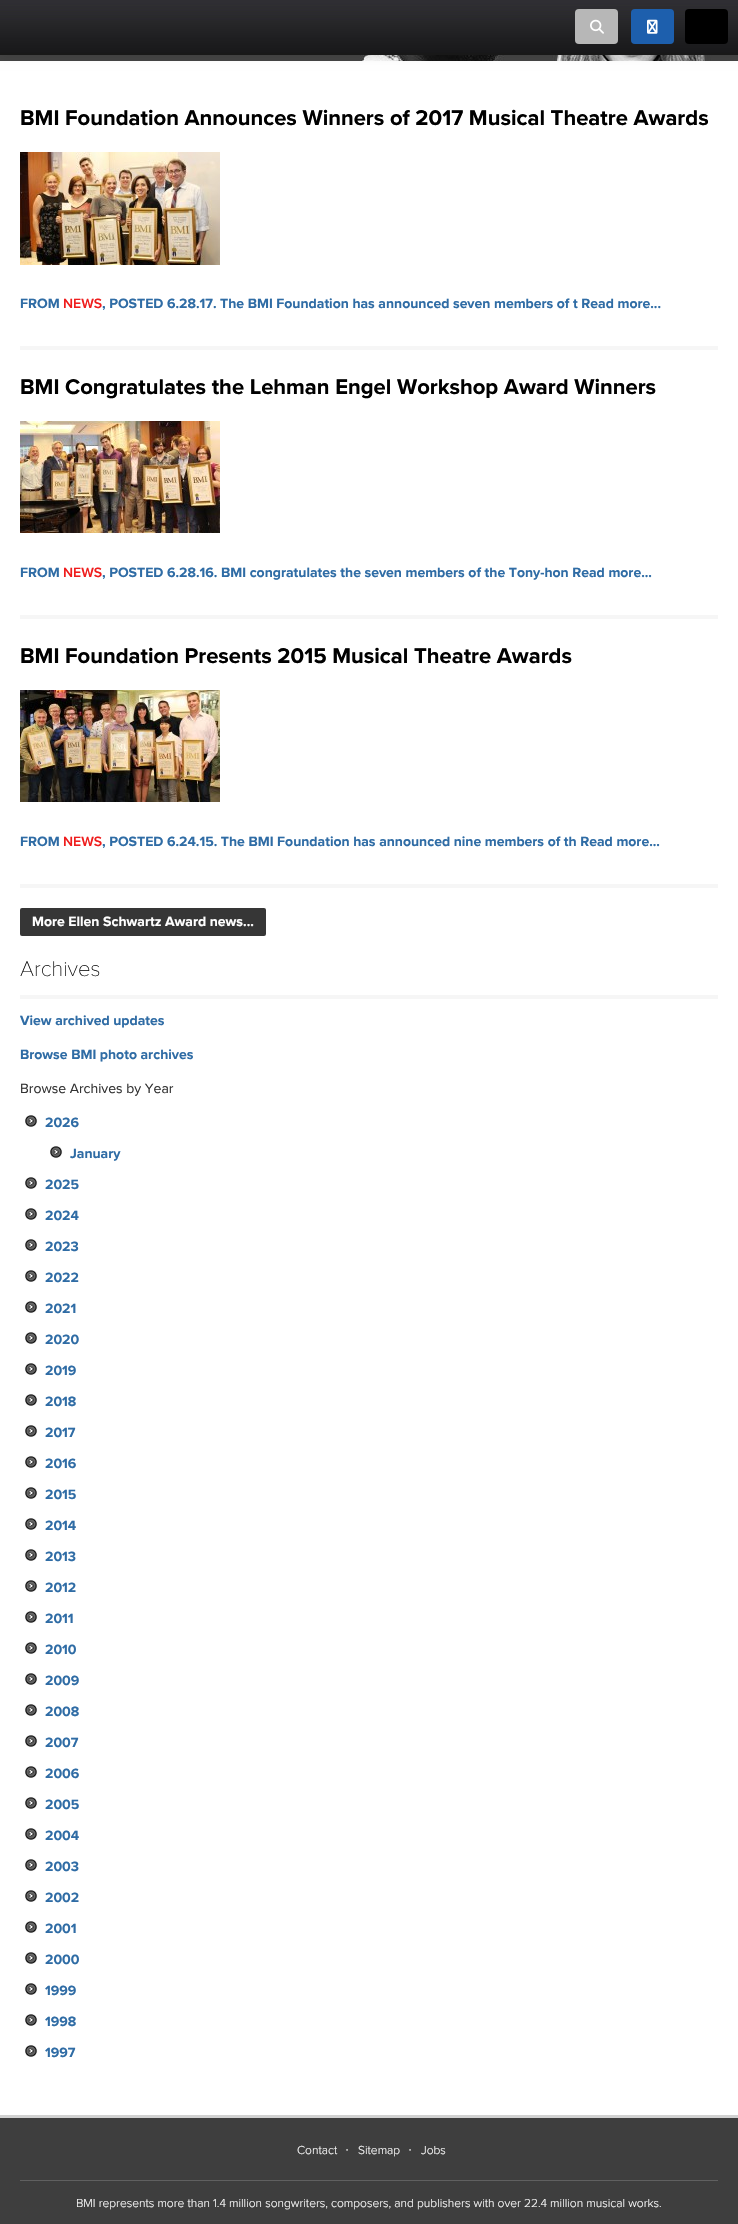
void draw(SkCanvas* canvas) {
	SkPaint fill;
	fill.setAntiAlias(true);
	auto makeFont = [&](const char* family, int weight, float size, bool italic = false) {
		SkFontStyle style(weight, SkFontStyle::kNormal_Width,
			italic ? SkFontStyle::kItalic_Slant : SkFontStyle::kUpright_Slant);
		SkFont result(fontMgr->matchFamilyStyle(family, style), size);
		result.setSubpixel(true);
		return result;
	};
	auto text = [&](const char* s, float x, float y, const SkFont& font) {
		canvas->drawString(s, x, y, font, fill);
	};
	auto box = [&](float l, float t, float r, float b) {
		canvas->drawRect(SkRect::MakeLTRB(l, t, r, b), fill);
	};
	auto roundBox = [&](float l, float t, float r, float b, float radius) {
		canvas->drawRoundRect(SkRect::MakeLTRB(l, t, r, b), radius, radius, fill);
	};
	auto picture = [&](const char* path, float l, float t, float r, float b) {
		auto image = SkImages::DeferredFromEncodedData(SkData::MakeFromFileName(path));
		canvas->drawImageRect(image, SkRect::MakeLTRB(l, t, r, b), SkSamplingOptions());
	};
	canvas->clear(0xFFFFFFFF);
	picture("image3.png", 0, 55, 738, 61);
	fill.setColor(0x1A000000);
	fill.setMaskFilter(SkMaskFilter::MakeBlur(kNormal_SkBlurStyle, 5));
	canvas->drawRect(SkRect::MakeLTRB(0, 1, 738, 56), fill);
	fill.setMaskFilter(nullptr);
	picture("image0.png", 0, 0, 738, 55);
	fill.setColor(0xFFB7B7B7);
	roundBox(575, 9, 618, 44, 4);
	picture("image1.png", 590, 19, 604, 34);
	fill.setColor(0xFF1D5FAD);
	roundBox(631, 9, 674, 44, 4);
	picture("image2.png", 647, 19, 658, 34);
	fill.setColor(0xFF000000);
	roundBox(685, 9, 728, 44, 4);
	fill.setColor(0xFFF6F6F6);
	box(20, 346, 718, 350);
	picture("image4.png", 20, 152, 220, 265);
	box(20, 615, 718, 619);
	picture("image5.png", 20, 421, 220, 533);
	box(20, 884, 718, 888);
	picture("image6.png", 20, 690, 220, 802);
	fill.setColor(0xFF363636);
	roundBox(20, 908, 266, 936, 2);
	fill.setColor(0xFFF6F6F6);
	box(20, 995, 718, 999);
	picture("image7.png", 25, 1115, 38, 1127);
	picture("image7.png", 50, 1146, 63, 1158);
	picture("image7.png", 25, 1177, 38, 1189);
	picture("image7.png", 25, 1208, 38, 1220);
	picture("image7.png", 25, 1239, 38, 1251);
	picture("image7.png", 25, 1270, 38, 1282);
	picture("image7.png", 25, 1301, 38, 1313);
	picture("image7.png", 25, 1332, 38, 1344);
	picture("image7.png", 25, 1363, 38, 1375);
	picture("image7.png", 25, 1394, 38, 1406);
	picture("image7.png", 25, 1425, 38, 1437);
	picture("image7.png", 25, 1456, 38, 1468);
	picture("image7.png", 25, 1487, 38, 1499);
	picture("image7.png", 25, 1518, 38, 1530);
	picture("image7.png", 25, 1549, 38, 1561);
	picture("image7.png", 25, 1580, 38, 1592);
	picture("image7.png", 25, 1611, 38, 1623);
	picture("image7.png", 25, 1642, 38, 1654);
	picture("image7.png", 25, 1673, 38, 1685);
	picture("image7.png", 25, 1704, 38, 1716);
	picture("image7.png", 25, 1735, 38, 1747);
	picture("image7.png", 25, 1766, 38, 1778);
	picture("image7.png", 25, 1797, 38, 1809);
	picture("image7.png", 25, 1828, 38, 1840);
	picture("image7.png", 25, 1859, 38, 1871);
	picture("image7.png", 25, 1890, 38, 1902);
	picture("image7.png", 25, 1921, 38, 1933);
	picture("image7.png", 25, 1952, 38, 1964);
	picture("image7.png", 25, 1983, 38, 1995);
	picture("image7.png", 25, 2014, 38, 2026);
	picture("image7.png", 25, 2045, 38, 2057);
	fill.setColor(0xFF3E3E3E);
	box(0, 2118, 738, 2224);
	fill.setColor(0xFFD1D1D1);
	box(0, 2115, 738, 2118);
	fill.setColor(0xFF606060);
	box(20, 2180, 718, 2181);
	auto font1 = makeFont("Proxima Nova", 700, 22);
	fill.setColor(0xFF000000);
	text("BMI Foundation Announces Winners of 2017 Musical Theatre Awards", 20, 125, font1);
	auto font2 = makeFont("Proxima Nova", 700, 14);
	fill.setColor(0xFF2F6CA5);
	text("FROM", 20, 308, font2);
	auto font3 = makeFont("Proxima Nova", 600, 14);
	fill.setColor(0xFFEF1D1D);
	text("NEWS", 63, 308, font3);
	fill.setColor(0xFF2F6CA5);
	text(", POSTED 6.28.17. The BMI Foundation has announced seven members of t Read more...", 102, 308, font2);
	fill.setColor(0xFF000000);
	text("BMI Congratulates the Lehman Engel Workshop Award Winners", 20, 394, font1);
	fill.setColor(0xFF2F6CA5);
	text("FROM", 20, 577, font2);
	fill.setColor(0xFFEF1D1D);
	text("NEWS", 63, 577, font3);
	fill.setColor(0xFF2F6CA5);
	text(", POSTED 6.28.16. BMI congratulates the seven members of the Tony-hon Read more...", 102, 577, font2);
	fill.setColor(0xFF000000);
	text("BMI Foundation Presents 2015 Musical Theatre Awards", 20, 663, font1);
	fill.setColor(0xFF2F6CA5);
	text("FROM", 20, 846, font2);
	fill.setColor(0xFFEF1D1D);
	text("NEWS", 63, 846, font3);
	fill.setColor(0xFF2F6CA5);
	text(", POSTED 6.24.15. The BMI Foundation has announced nine members of th Read more...", 102, 846, font2);
	fill.setColor(0xFFFFFFFF);
	text("More Ellen Schwartz Award news...", 32, 926, font2);
	auto font4 = makeFont("Proxima Nova", 100, 22);
	fill.setColor(0xFF111111);
	text("Archives", 20, 976, font4);
	fill.setColor(0xFF2F6CA5);
	text("View archived updates", 20, 1025, font2);
	text("Browse BMI photo archives", 20, 1059, font2);
	auto font5 = makeFont("Proxima Nova", 400, 14);
	fill.setColor(0xFF333333);
	text("Browse Archives by Year", 20, 1093, font5);
	fill.setColor(0xFF2F6CA5);
	text("2026", 45, 1127, font2);
	text("January", 70, 1158, font2);
	text("2025", 45, 1189, font2);
	text("2024", 45, 1220, font2);
	text("2023", 45, 1251, font2);
	text("2022", 45, 1282, font2);
	text("2021", 45, 1313, font2);
	text("2020", 45, 1344, font2);
	text("2019", 45, 1375, font2);
	text("2018", 45, 1406, font2);
	text("2017", 45, 1437, font2);
	text("2016", 45, 1468, font2);
	text("2015", 45, 1499, font2);
	text("2014", 45, 1530, font2);
	text("2013", 45, 1561, font2);
	text("2012", 45, 1592, font2);
	text("2011", 45, 1623, font2);
	text("2010", 45, 1654, font2);
	text("2009", 45, 1685, font2);
	text("2008", 45, 1716, font2);
	text("2007", 45, 1747, font2);
	text("2006", 45, 1778, font2);
	text("2005", 45, 1809, font2);
	text("2004", 45, 1840, font2);
	text("2003", 45, 1871, font2);
	text("2002", 45, 1902, font2);
	text("2001", 45, 1933, font2);
	text("2000", 45, 1964, font2);
	text("1999", 45, 1995, font2);
	text("1998", 45, 2026, font2);
	text("1997", 45, 2057, font2);
	auto font6 = makeFont("Proxima Nova", 300, 12);
	fill.setColor(0xFFFFFFFF);
	text("Contact", 297, 2154, font6);
	auto font7 = makeFont("Liberation Sans", 400, 15);
	fill.setColor(0xFFC6C6C6);
	text("∙", 345, 2154, font7);
	fill.setColor(0xFFFFFFFF);
	text("Sitemap", 358, 2154, font6);
	fill.setColor(0xFFC6C6C6);
	text("∙", 408, 2154, font7);
	fill.setColor(0xFFFFFFFF);
	text("Jobs", 421, 2154, font6);
	text("BMI represents more than 1.4 million songwriters, composers, and publishers with over 22.4 million musical works.", 76, 2207, font6);
}
